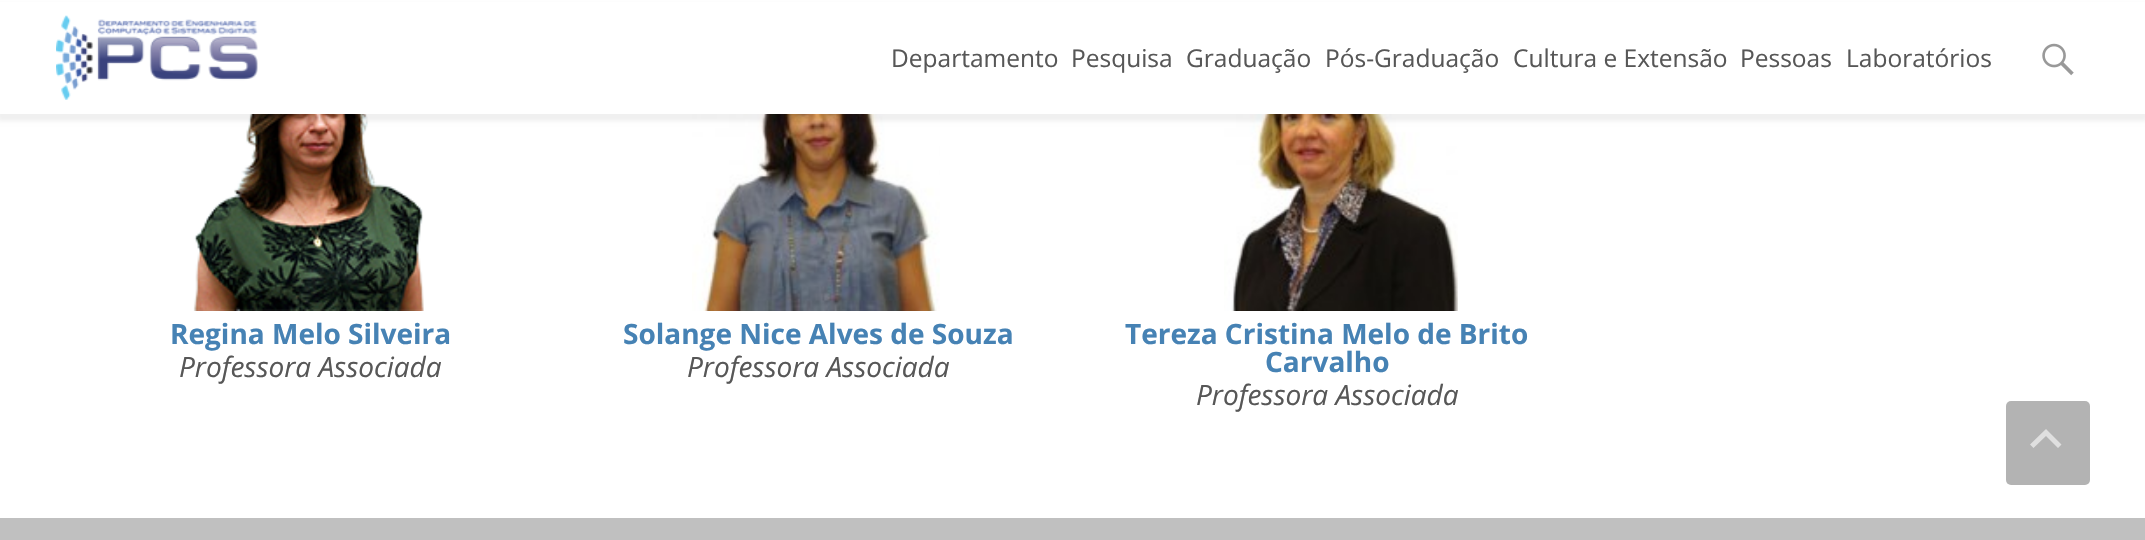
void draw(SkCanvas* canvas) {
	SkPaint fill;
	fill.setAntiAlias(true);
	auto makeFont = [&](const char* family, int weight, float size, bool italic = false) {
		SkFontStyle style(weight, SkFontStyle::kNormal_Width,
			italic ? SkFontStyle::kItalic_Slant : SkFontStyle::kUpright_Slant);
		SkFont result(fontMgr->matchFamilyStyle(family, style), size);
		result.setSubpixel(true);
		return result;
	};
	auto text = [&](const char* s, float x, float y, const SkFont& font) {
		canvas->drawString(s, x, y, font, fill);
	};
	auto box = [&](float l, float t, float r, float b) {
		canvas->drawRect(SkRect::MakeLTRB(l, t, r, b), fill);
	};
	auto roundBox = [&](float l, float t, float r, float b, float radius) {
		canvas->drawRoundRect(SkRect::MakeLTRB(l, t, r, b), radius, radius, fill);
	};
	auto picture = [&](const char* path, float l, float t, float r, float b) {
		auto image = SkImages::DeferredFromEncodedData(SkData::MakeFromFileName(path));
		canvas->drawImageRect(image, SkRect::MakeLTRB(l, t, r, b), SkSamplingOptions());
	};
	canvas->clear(0xFFFFFFFF);
	picture("image2.png", 193, 114, 424, 311);
	picture("image3.png", 692, 114, 940, 311);
	picture("image4.png", 1224, 114, 1458, 311);
	fill.setColor(0x0F000000);
	fill.setMaskFilter(SkMaskFilter::MakeBlur(kNormal_SkBlurStyle, 2));
	canvas->drawRect(SkRect::MakeLTRB(-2, 4, 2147, 121), fill);
	fill.setMaskFilter(nullptr);
	fill.setColor(0xFFFFFFFF);
	box(0, 2, 2145, 114);
	picture("image0.png", 56, 15, 258, 100);
	picture("image1.png", 2042, 43, 2074, 76);
	fill.setColor(0xFFC0C0C0);
	box(0, 518, 2145, 540);
	fill.setColor(0xFFB3B3B3);
	roundBox(2006, 401, 2090, 485, 5);
	fill.setColor(0xFFDFDFDF);
	canvas->drawPath(SkPathBuilder().moveTo(2030, 444.5f).lineTo(2046, 429).lineTo(2061.5f, 444.5f).lineTo(2058, 448).lineTo(2046, 436).lineTo(2033.5f, 448).close().detach(), fill);
	auto font1 = makeFont("Open Sans", 400, 24.5f);
	fill.setColor(0xFF575757);
	text("Departamento", 891, 67, font1);
	text("Pesquisa", 1071, 67, font1);
	text("Graduação", 1186, 67, font1);
	text("Pós-Graduação", 1325, 67, font1);
	text("Cultura e Extensão", 1513, 67, font1);
	text("Pessoas", 1740, 67, font1);
	text("Laboratórios", 1846, 67, font1);
	auto font2 = makeFont("Open Sans", 700, 28);
	fill.setColor(0xFF4682B4);
	text("Regina Melo Silveira", 170, 344, font2);
	auto font3 = makeFont("Open Sans", 400, 28, true);
	fill.setColor(0xFF575757);
	text("Professora Associada", 179, 377, font3);
	fill.setColor(0xFF4682B4);
	text("Solange Nice Alves de Souza", 623, 344, font2);
	fill.setColor(0xFF575757);
	text("Professora Associada", 687, 377, font3);
	fill.setColor(0xFF4682B4);
	text("Tereza Cristina Melo de Brito", 1125, 344, font2);
	text("Carvalho", 1265, 372, font2);
	fill.setColor(0xFF575757);
	text("Professora Associada", 1196, 405, font3);
}
